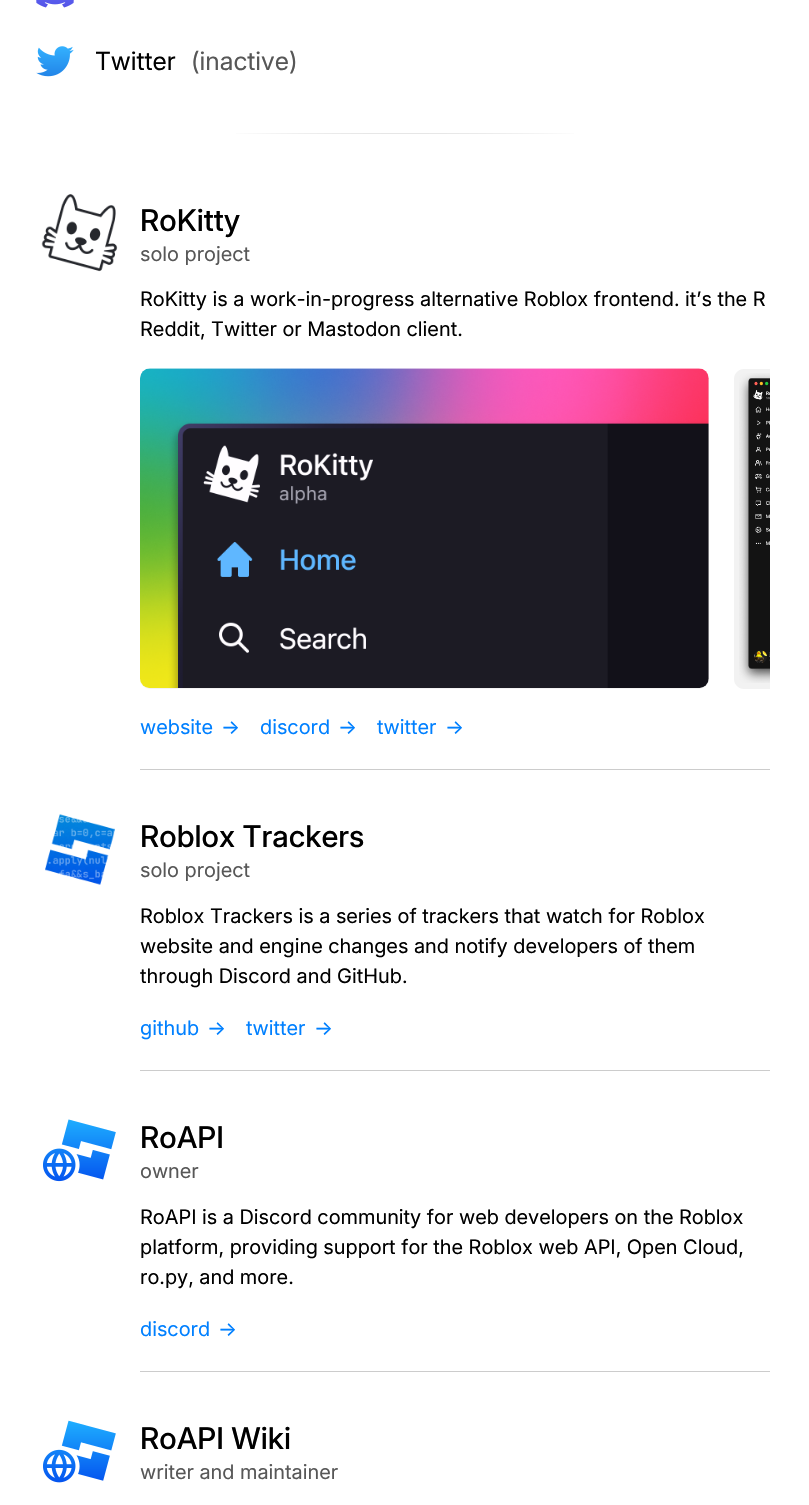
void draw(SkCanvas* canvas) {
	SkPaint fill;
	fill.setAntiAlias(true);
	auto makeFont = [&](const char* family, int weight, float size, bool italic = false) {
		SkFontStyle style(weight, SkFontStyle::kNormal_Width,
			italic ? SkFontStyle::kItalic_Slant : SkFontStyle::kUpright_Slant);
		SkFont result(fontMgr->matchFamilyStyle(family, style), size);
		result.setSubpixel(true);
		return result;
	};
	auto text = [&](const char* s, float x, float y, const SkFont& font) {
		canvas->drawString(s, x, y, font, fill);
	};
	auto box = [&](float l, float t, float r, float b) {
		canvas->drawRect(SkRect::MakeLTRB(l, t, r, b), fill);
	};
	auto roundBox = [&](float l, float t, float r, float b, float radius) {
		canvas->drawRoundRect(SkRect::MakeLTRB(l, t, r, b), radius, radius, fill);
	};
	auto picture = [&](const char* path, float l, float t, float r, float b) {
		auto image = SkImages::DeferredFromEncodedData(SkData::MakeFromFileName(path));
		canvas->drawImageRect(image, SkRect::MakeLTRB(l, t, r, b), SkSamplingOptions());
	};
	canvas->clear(0xFFFFFFFF);
	picture("image0.png", 36, 0, 74, 8);
	picture("image1.png", 36, 46, 74, 77);
	{
		const SkColor colors[] = {0xFFCCCCCC, 0xFFCCCCCC, 0xFFFFFFFF};
		const float stops[] = {0.33f, 0.66f, 1};
		SkMatrix m = SkMatrix::Translate(405, 133).preScale(324, 0.6f);
		fill.setShader(SkGradientShader::MakeRadial({0, 0}, 1, colors, stops, 3, SkTileMode::kClamp, 0, &m));
		fill.setAlpha(255);
	}
	box(236, 133, 574, 134);
	picture("image2.png", 41, 194, 118, 272);
	fill.setShader(nullptr);
	fill.setColor(0xFFCCCCCC);
	box(140, 769, 770, 770);
	fill.setColor(0xFFF3F3F3);
	roundBox(140, 369, 709, 689, 10);
	picture("image3.png", 140, 368, 709, 688);
	fill.setColor(0xFFF2F2F2);
	canvas->drawPath(SkPathBuilder().moveTo(744, 369).lineTo(770, 369).lineTo(770, 689).lineTo(744, 689).cubicTo(738.5f, 689, 734, 684.5f, 734, 679).lineTo(734, 379).cubicTo(734, 373.5f, 738.5f, 369, 744, 369).close().detach(), fill);
	picture("image4.png", 739, 373, 770, 683);
	picture("image5.png", 45, 814, 115, 885);
	fill.setColor(0xFFCCCCCC);
	box(140, 1070, 770, 1071);
	picture("image6.png", 43, 1119, 116, 1182);
	box(140, 1371, 770, 1372);
	picture("image7.png", 43, 1420, 116, 1483);
	auto font1 = makeFont("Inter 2", 400, 25);
	fill.setColor(0xFF000000);
	text("Twitter", 95, 70, font1);
	fill.setColor(0xFF575757);
	text("(inactive)", 191, 70, font1);
	auto font2 = makeFont("Inter", 500, 30);
	fill.setColor(0xFF000000);
	text("RoKitty", 140, 231, font2);
	auto font3 = makeFont("Inter", 400, 20);
	fill.setColor(0xFF575757);
	text("solo project", 140, 261, font3);
	fill.setColor(0xFF000000);
	text("RoKitty is a work-in-progress alternative Roblox frontend. it’s the R", 140, 306, font3);
	text("Reddit, Twitter or Mastodon client.", 140, 336, font3);
	fill.setColor(0xFF0080FF);
	text("website", 140, 734, font3);
	text("→", 221, 734, font3);
	text("discord", 260, 734, font3);
	text("→", 338, 734, font3);
	text("twitter", 377, 734, font3);
	text("→", 445, 734, font3);
	fill.setColor(0xFF000000);
	text("Roblox Trackers", 140, 847, font2);
	fill.setColor(0xFF575757);
	text("solo project", 140, 877, font3);
	fill.setColor(0xFF000000);
	text("Roblox Trackers is a series of trackers that watch for Roblox", 140, 923, font3);
	text("website and engine changes and notify developers of them", 140, 953, font3);
	text("through Discord and GitHub.", 140, 983, font3);
	fill.setColor(0xFF0080FF);
	text("github", 140, 1035, font3);
	text("→", 207, 1035, font3);
	text("twitter", 246, 1035, font3);
	text("→", 314, 1035, font3);
	fill.setColor(0xFF000000);
	text("RoAPI", 140, 1148, font2);
	fill.setColor(0xFF575757);
	text("owner", 140, 1178, font3);
	fill.setColor(0xFF000000);
	text("RoAPI is a Discord community for web developers on the Roblox", 140, 1224, font3);
	text("platform, providing support for the Roblox web API, Open Cloud,", 140, 1254, font3);
	text("ro.py, and more.", 140, 1284, font3);
	fill.setColor(0xFF0080FF);
	text("discord", 140, 1336, font3);
	text("→", 218, 1336, font3);
	fill.setColor(0xFF000000);
	text("RoAPI Wiki", 140, 1449, font2);
	fill.setColor(0xFF575757);
	text("writer and maintainer", 140, 1479, font3);
}
